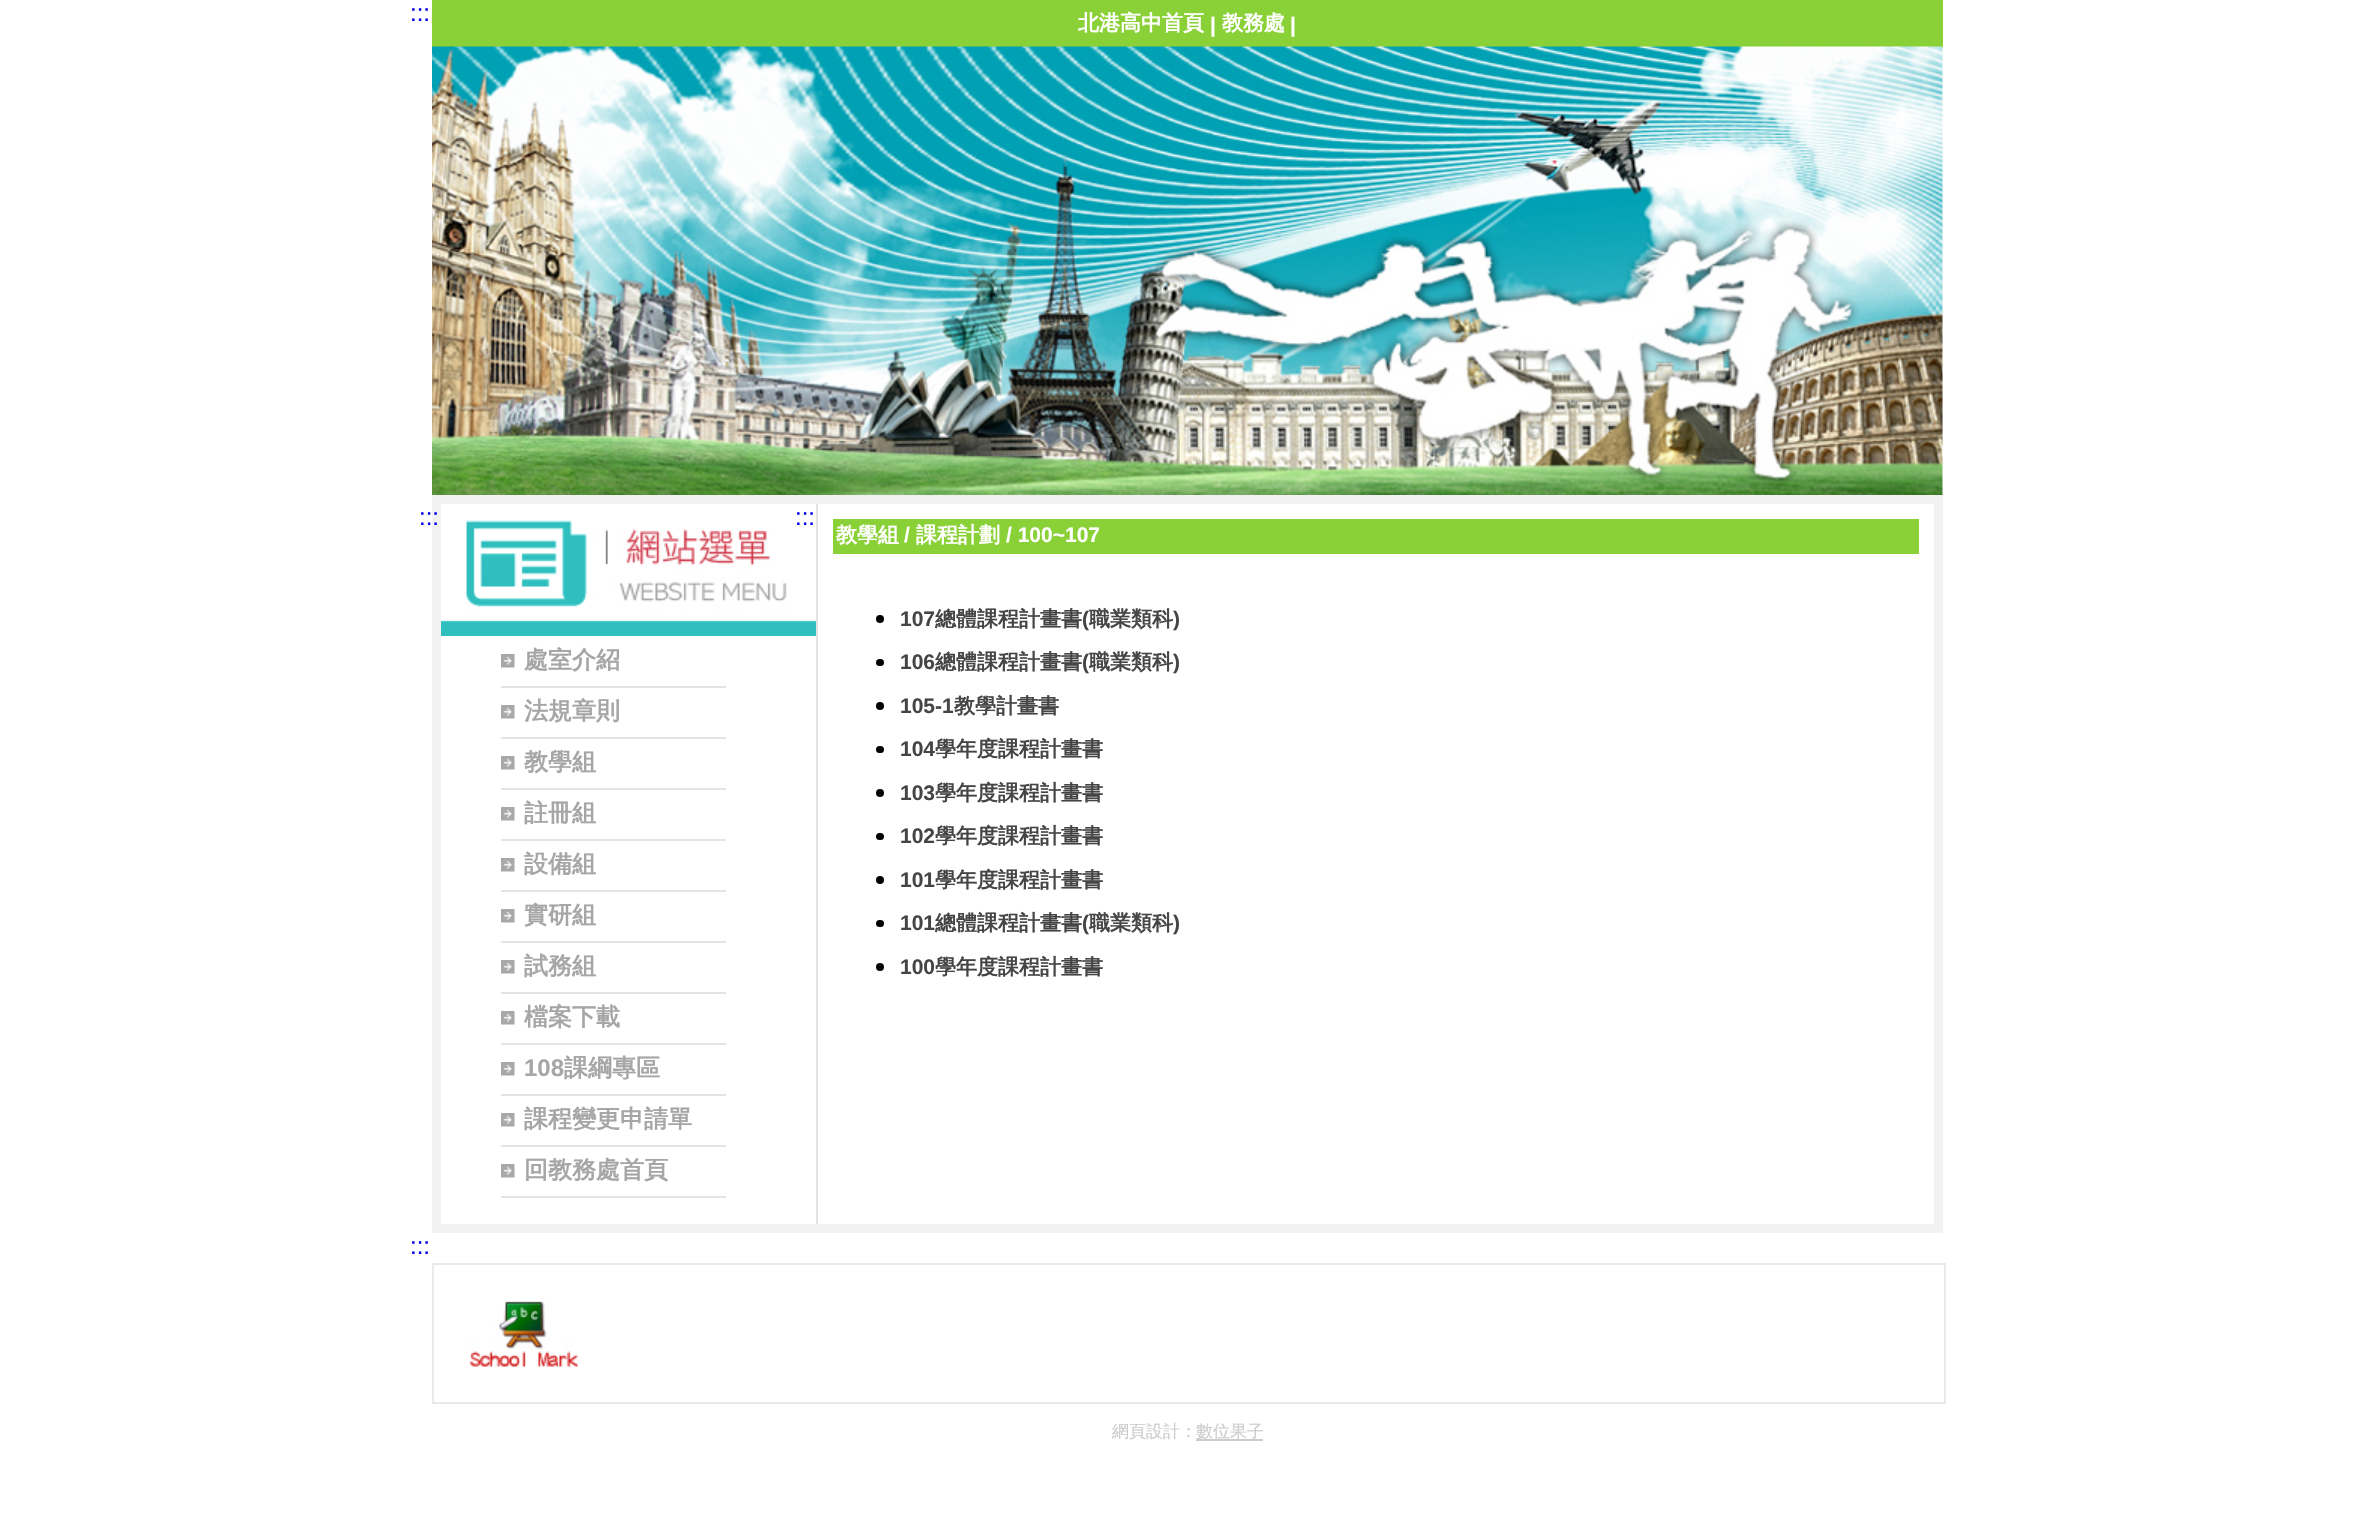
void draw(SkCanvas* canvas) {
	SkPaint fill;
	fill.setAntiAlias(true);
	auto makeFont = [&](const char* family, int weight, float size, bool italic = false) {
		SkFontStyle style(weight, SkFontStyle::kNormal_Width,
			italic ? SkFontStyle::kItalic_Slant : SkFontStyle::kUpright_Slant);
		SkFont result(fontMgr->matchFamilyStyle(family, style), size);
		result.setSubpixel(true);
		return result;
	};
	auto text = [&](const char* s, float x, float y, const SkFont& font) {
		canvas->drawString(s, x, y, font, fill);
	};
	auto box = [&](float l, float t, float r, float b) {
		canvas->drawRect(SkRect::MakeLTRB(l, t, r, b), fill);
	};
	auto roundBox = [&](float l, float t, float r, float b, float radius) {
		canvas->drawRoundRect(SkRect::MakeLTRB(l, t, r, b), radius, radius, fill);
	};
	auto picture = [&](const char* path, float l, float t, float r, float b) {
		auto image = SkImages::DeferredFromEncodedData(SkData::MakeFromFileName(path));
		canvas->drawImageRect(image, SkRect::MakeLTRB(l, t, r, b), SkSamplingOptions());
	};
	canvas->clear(0xFFFFFFFF);
	fill.setColor(0xFF8AD137);
	box(432, 0, 1943, 47);
	picture("image0.png", 432, 46, 1943, 495);
	fill.setStyle(SkPaint::kStroke_Style);
	fill.setStrokeWidth(9);
	fill.setColor(0xFFF2F2F2);
	canvas->drawRect(SkRect::MakeLTRB(436.5f, 499.5f, 1938.5f, 1228.5f), fill);
	picture("image1.png", 441, 520, 816, 636);
	fill.setStyle(SkPaint::kFill_Style);
	fill.setColor(0xFFE4E4E4);
	box(501, 686, 726, 688);
	picture("image2.png", 501, 654, 515, 668);
	box(501, 737, 726, 739);
	picture("image2.png", 501, 705, 515, 719);
	box(501, 788, 726, 790);
	picture("image2.png", 501, 756, 515, 770);
	box(501, 839, 726, 841);
	picture("image2.png", 501, 807, 515, 821);
	box(501, 890, 726, 892);
	picture("image2.png", 501, 858, 515, 872);
	box(501, 941, 726, 943);
	picture("image2.png", 501, 909, 515, 923);
	box(501, 992, 726, 994);
	picture("image2.png", 501, 960, 515, 974);
	box(501, 1043, 726, 1045);
	picture("image2.png", 501, 1011, 515, 1025);
	box(501, 1094, 726, 1096);
	picture("image2.png", 501, 1062, 515, 1076);
	box(501, 1145, 726, 1147);
	picture("image2.png", 501, 1113, 515, 1127);
	box(501, 1196, 726, 1198);
	picture("image2.png", 501, 1164, 515, 1178);
	fill.setColor(0xFFE2E2E2);
	box(816, 504, 818, 1224);
	fill.setColor(0xFF8AD137);
	box(833, 519, 1919, 554);
	fill.setColor(0xFF000000);
	canvas->drawCircle(880, 619, 4, fill);
	roundBox(876, 659, 884, 666, 3.5f);
	canvas->drawCircle(880, 706, 4, fill);
	roundBox(876, 746, 884, 753, 3.5f);
	canvas->drawCircle(880, 793, 4, fill);
	roundBox(876, 833, 884, 840, 3.5f);
	canvas->drawCircle(880, 880, 4, fill);
	roundBox(876, 920, 884, 927, 3.5f);
	canvas->drawCircle(880, 967, 4, fill);
	fill.setStyle(SkPaint::kStroke_Style);
	fill.setStrokeWidth(2);
	fill.setColor(0xFFE9E9E9);
	canvas->drawRect(SkRect::MakeLTRB(433, 1264, 1945, 1403), fill);
	picture("image3.png", 469, 1301, 578, 1367);
	fill.setStyle(SkPaint::kFill_Style);
	fill.setColor(0xFFCCCCCC);
	box(1196, 1439, 1263, 1441);
	auto font1 = makeFont("Liberation Sans", 400, 24);
	fill.setColor(0xFF0000EE);
	text(":::", 410, 21, font1);
	auto font2 = makeFont("WenQuanYi Zen Hei", 700, 21);
	fill.setColor(0xFFFFFFFF);
	text("北港高中首頁", 1078, 30, font2);
	auto font3 = makeFont("Liberation Sans", 700, 21);
	text("|", 1210, 32, font3);
	text("教務處", 1222, 30, font2);
	text("|", 1290, 32, font3);
	fill.setColor(0xFF0000EE);
	text(":::", 419, 525, font1);
	auto font4 = makeFont("WenQuanYi Zen Hei", 700, 24);
	fill.setColor(0xFFA6A6A6);
	text("處室介紹", 524, 668, font4);
	text("法規章則", 524, 719, font4);
	text("教學組", 524, 770, font4);
	text("註冊組", 524, 821, font4);
	text("設備組", 524, 872, font4);
	text("實研組", 524, 923, font4);
	text("試務組", 524, 974, font4);
	text("檔案下載", 524, 1025, font4);
	auto font5 = makeFont("Liberation Sans", 700, 24);
	text("108", 524, 1076, font5);
	text("課綱專區", 564, 1076, font4);
	text("課程變更申請單", 524, 1127, font4);
	text("回教務處首頁", 524, 1178, font4);
	fill.setColor(0xFF0000EE);
	text(":::", 795, 525, font1);
	fill.setColor(0xFFFFFFFF);
	text("教學組", 836, 542, font2);
	text("/", 904, 542, font3);
	text("課程計劃", 916, 542, font2);
	text("/ 100~107", 1006, 542, font3);
	fill.setColor(0xFF454545);
	text("107", 900, 626, font3);
	text("總體課程計畫書", 935, 626, font2);
	text("(", 1082, 626, font3);
	text("職業類科", 1089, 626, font2);
	text(")", 1173, 626, font3);
	text("106", 900, 669, font3);
	text("總體課程計畫書", 935, 669, font2);
	text("(", 1082, 669, font3);
	text("職業類科", 1089, 669, font2);
	text(")", 1173, 669, font3);
	text("105-1", 900, 713, font3);
	text("教學計畫書", 954, 713, font2);
	text("104", 900, 756, font3);
	text("學年度課程計畫書", 935, 756, font2);
	text("103", 900, 800, font3);
	text("學年度課程計畫書", 935, 800, font2);
	text("102", 900, 843, font3);
	text("學年度課程計畫書", 935, 843, font2);
	text("101", 900, 887, font3);
	text("學年度課程計畫書", 935, 887, font2);
	text("101", 900, 930, font3);
	text("總體課程計畫書", 935, 930, font2);
	text("(", 1082, 930, font3);
	text("職業類科", 1089, 930, font2);
	text(")", 1173, 930, font3);
	text("100", 900, 974, font3);
	text("學年度課程計畫書", 935, 974, font2);
	fill.setColor(0xFF0000EE);
	text(":::", 410, 1254, font1);
	auto font6 = makeFont("WenQuanYi Zen Hei", 500, 17);
	fill.setColor(0xFFCCCCCC);
	text("網頁設計：", 1112, 1437, font6);
	text("數位果子", 1196, 1437, font6);
}
